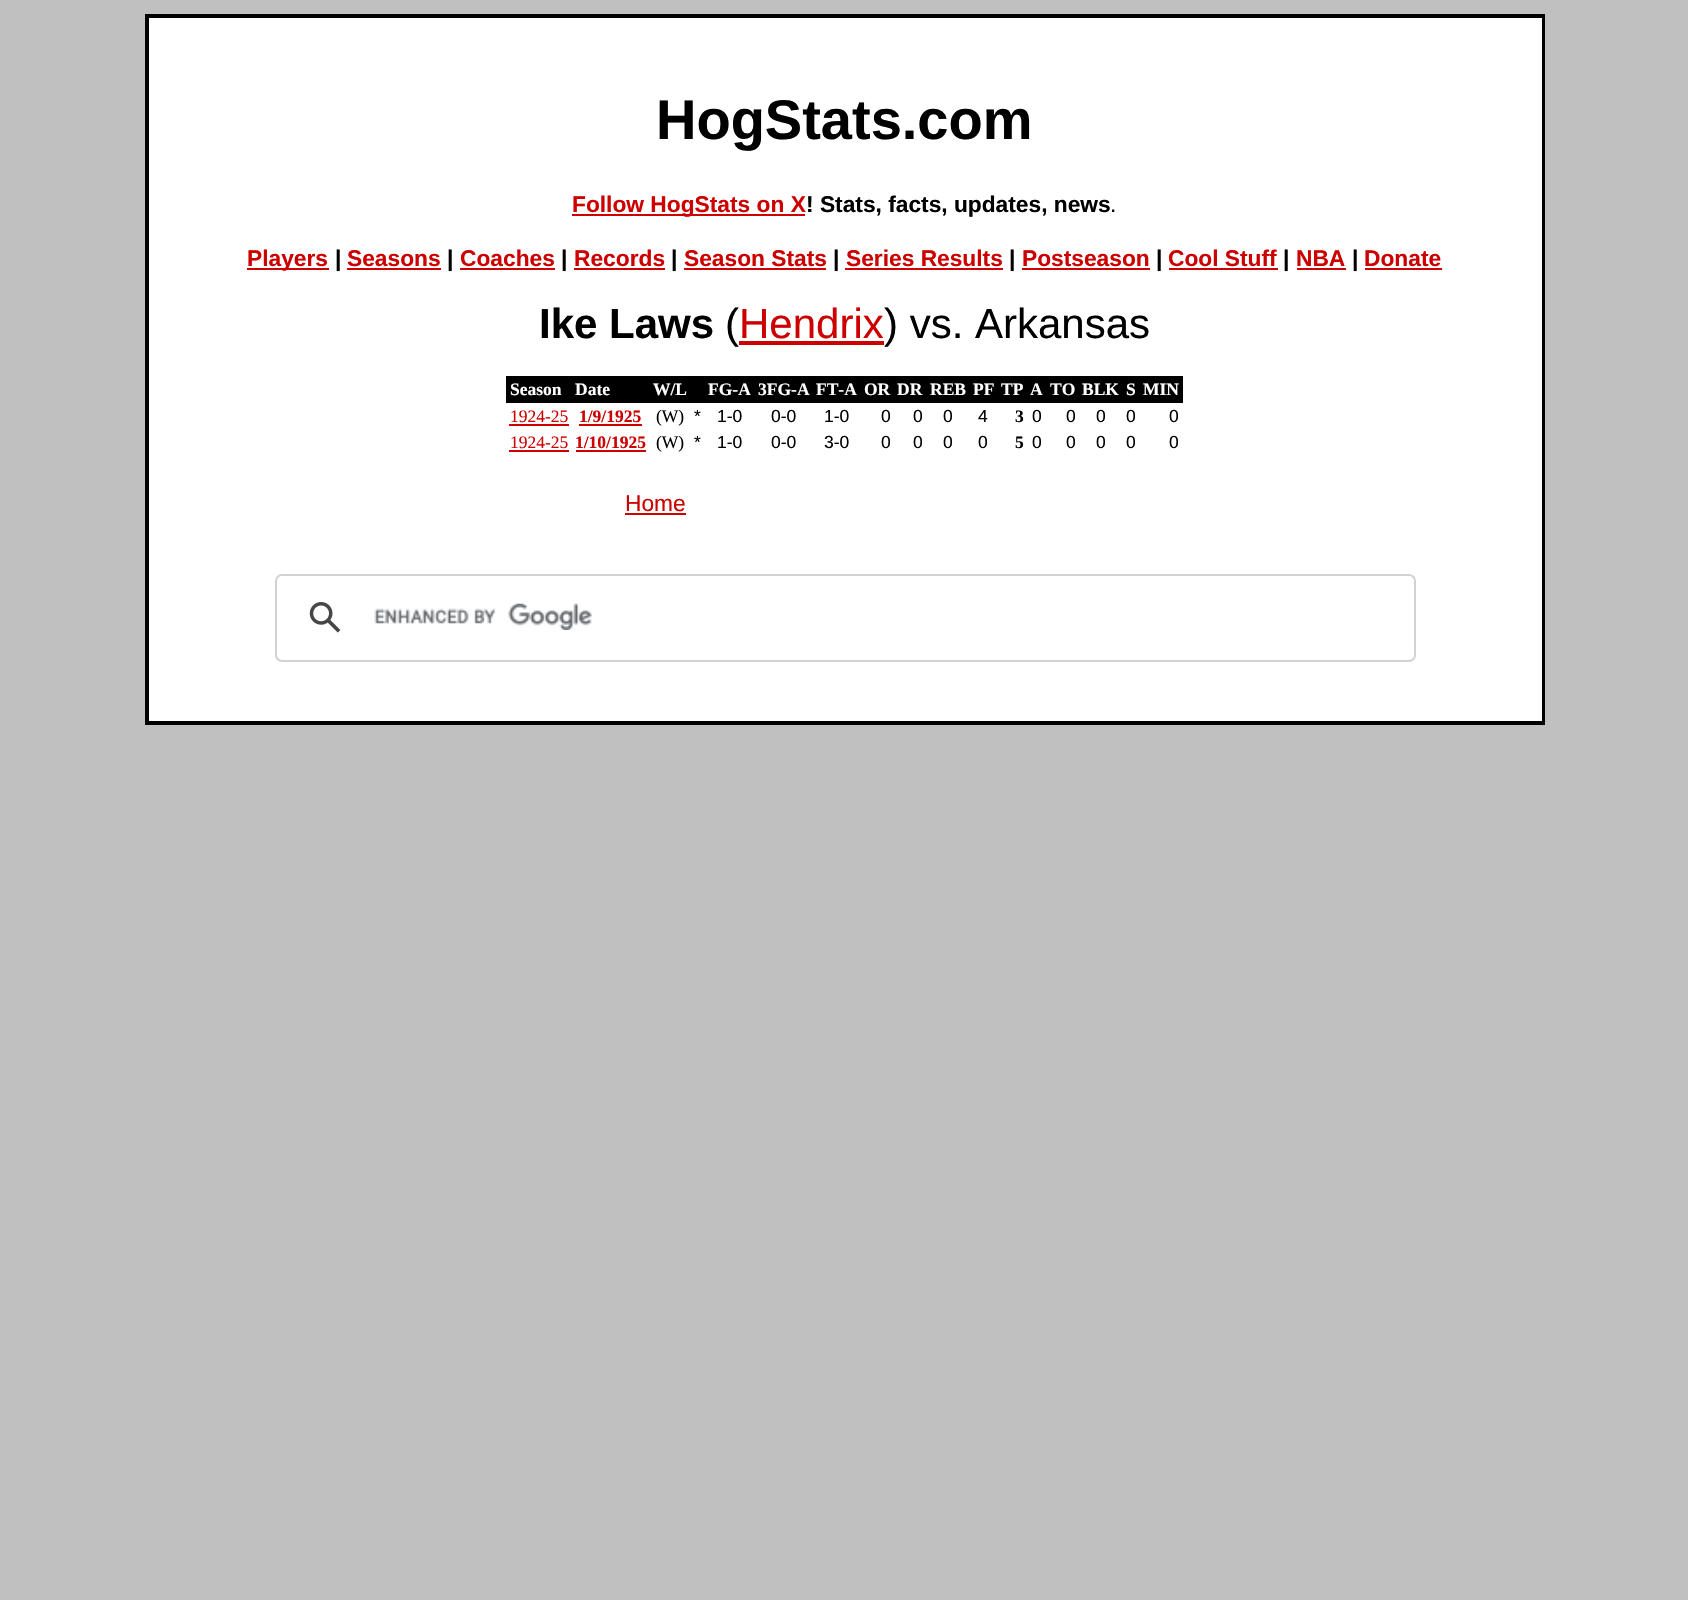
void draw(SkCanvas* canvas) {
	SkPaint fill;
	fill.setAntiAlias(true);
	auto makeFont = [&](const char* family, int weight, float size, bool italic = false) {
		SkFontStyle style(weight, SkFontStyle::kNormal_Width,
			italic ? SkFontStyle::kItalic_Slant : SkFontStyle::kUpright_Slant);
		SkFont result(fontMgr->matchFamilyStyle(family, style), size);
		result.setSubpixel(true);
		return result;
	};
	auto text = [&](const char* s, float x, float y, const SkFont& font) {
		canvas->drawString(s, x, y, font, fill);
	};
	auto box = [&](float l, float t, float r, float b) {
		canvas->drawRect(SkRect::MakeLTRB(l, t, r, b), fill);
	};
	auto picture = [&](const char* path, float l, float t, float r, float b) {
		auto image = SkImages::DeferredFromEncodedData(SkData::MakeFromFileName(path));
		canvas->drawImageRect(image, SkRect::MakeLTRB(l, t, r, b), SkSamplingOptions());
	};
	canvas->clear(0xFFC0C0C0);
	fill.setColor(0xFF000000);
	box(145, 14, 1545, 725);
	fill.setColor(0xFFFFFFFF);
	box(149, 18, 1542, 721);
	fill.setColor(0xFFCD0000);
	box(572, 214, 805, 216);
	box(247, 268, 329, 270);
	box(347, 268, 441, 270);
	box(460, 268, 555, 270);
	box(574, 268, 665, 270);
	box(684, 268, 826, 270);
	box(845, 268, 1003, 270);
	box(1022, 268, 1150, 270);
	box(1169, 268, 1278, 270);
	box(1297, 268, 1346, 270);
	box(1365, 268, 1442, 270);
	fill.setColor(0xFF000000);
	box(506, 376, 1183, 403);
	fill.setColor(0xFFCD0000);
	box(509, 424, 569, 426);
	box(579, 424, 642, 426);
	box(509, 450, 569, 452);
	box(576, 450, 646, 452);
	box(625, 513, 686, 515);
	fill.setStyle(SkPaint::kStroke_Style);
	fill.setStrokeWidth(2);
	fill.setColor(0xFFD2D2D2);
	canvas->drawRoundRect(SkRect::MakeLTRB(276, 575, 1415, 661), 6, 6, fill);
	picture("image0.png", 309, 602, 341, 633);
	picture("image1.png", 374, 603, 592, 630);
	auto font1 = makeFont("Liberation Sans", 700, 56);
	fill.setStyle(SkPaint::kFill_Style);
	fill.setColor(0xFF000000);
	text("HogStats.com", 656, 139, font1);
	auto font2 = makeFont("Liberation Sans", 700, 22.75f);
	fill.setColor(0xFFCD0000);
	text("Follow HogStats on X", 572, 212, font2);
	fill.setColor(0xFF000000);
	text("! Stats, facts, updates, news", 806, 212, font2);
	auto font3 = makeFont("Liberation Sans", 400, 22.75f);
	text(".", 1110, 212, font3);
	fill.setColor(0xFFCD0000);
	text("Players", 247, 266, font2);
	fill.setColor(0xFF000000);
	text("|", 335, 266, font2);
	fill.setColor(0xFFCD0000);
	text("Seasons", 347, 266, font2);
	fill.setColor(0xFF000000);
	text("|", 447, 266, font2);
	fill.setColor(0xFFCD0000);
	text("Coaches", 460, 266, font2);
	fill.setColor(0xFF000000);
	text("|", 561, 266, font2);
	fill.setColor(0xFFCD0000);
	text("Records", 574, 266, font2);
	fill.setColor(0xFF000000);
	text("|", 671, 266, font2);
	fill.setColor(0xFFCD0000);
	text("Season Stats", 684, 266, font2);
	fill.setColor(0xFF000000);
	text("|", 833, 266, font2);
	fill.setColor(0xFFCD0000);
	text("Series Results", 846, 266, font2);
	fill.setColor(0xFF000000);
	text("|", 1009, 266, font2);
	fill.setColor(0xFFCD0000);
	text("Postseason", 1022, 266, font2);
	fill.setColor(0xFF000000);
	text("|", 1156, 266, font2);
	fill.setColor(0xFFCD0000);
	text("Cool Stuff", 1168, 266, font2);
	fill.setColor(0xFF000000);
	text("|", 1283, 266, font2);
	fill.setColor(0xFFCD0000);
	text("NBA", 1296, 266, font2);
	fill.setColor(0xFF000000);
	text("|", 1352, 266, font2);
	fill.setColor(0xFFCD0000);
	text("Donate", 1364, 266, font2);
	auto font4 = makeFont("Liberation Sans", 700, 42);
	fill.setColor(0xFF000000);
	text("Ike Laws", 539, 338, font4);
	auto font5 = makeFont("Liberation Sans", 400, 42);
	text("(", 725, 338, font5);
	fill.setColor(0xFFCD0000);
	box(739, 341, 884, 345);
	text("Hendrix", 739, 338, font5);
	fill.setColor(0xFF000000);
	text(") vs. Arkansas", 884, 338, font5);
	auto font6 = makeFont("Liberation Serif", 700, 17.5f);
	fill.setColor(0xFFFFFFFF);
	text("Season", 510, 395, font6);
	text("Date", 575, 395, font6);
	text("W/L", 653, 395, font6);
	text("FG-A", 708, 395, font6);
	text("3FG-A", 758, 395, font6);
	text("FT-A", 816, 395, font6);
	text("OR", 864, 395, font6);
	text("DR", 897, 395, font6);
	text("REB", 930, 395, font6);
	text("PF", 973, 395, font6);
	text("TP", 1001, 395, font6);
	text("A", 1030, 395, font6);
	text("TO", 1050, 395, font6);
	text("BLK", 1082, 395, font6);
	text("S", 1126, 395, font6);
	text("MIN", 1143, 395, font6);
	auto font7 = makeFont("Liberation Serif", 400, 17.5f);
	fill.setColor(0xFFCD0000);
	text("1924-25", 510, 422, font7);
	text("1/9/1925", 579, 422, font6);
	fill.setColor(0xFF000000);
	text("(W)", 656, 422, font7);
	auto font8 = makeFont("Liberation Sans", 400, 17.5f);
	text("*", 694, 422, font8);
	text("1-0", 717, 422, font8);
	text("0-0", 771, 422, font8);
	text("1-0", 824, 422, font8);
	text("0", 881, 422, font8);
	text("0", 913, 422, font8);
	text("0", 943, 422, font8);
	text("4", 978, 422, font8);
	text("3", 1015, 422, font6);
	text("0", 1032, 422, font8);
	text("0", 1066, 422, font8);
	text("0", 1096, 422, font8);
	text("0", 1126, 422, font8);
	text("0", 1169, 422, font8);
	fill.setColor(0xFFCD0000);
	text("1924-25", 510, 448, font7);
	text("1/10/1925", 575, 448, font6);
	fill.setColor(0xFF000000);
	text("(W)", 656, 448, font7);
	text("*", 694, 448, font8);
	text("1-0", 717, 448, font8);
	text("0-0", 771, 448, font8);
	text("3-0", 824, 448, font8);
	text("0", 881, 448, font8);
	text("0", 913, 448, font8);
	text("0", 943, 448, font8);
	text("0", 978, 448, font8);
	text("5", 1015, 448, font6);
	text("0", 1032, 448, font8);
	text("0", 1066, 448, font8);
	text("0", 1096, 448, font8);
	text("0", 1126, 448, font8);
	text("0", 1169, 448, font8);
	fill.setColor(0xFFCD0000);
	text("Home", 625, 511, font3);
}
